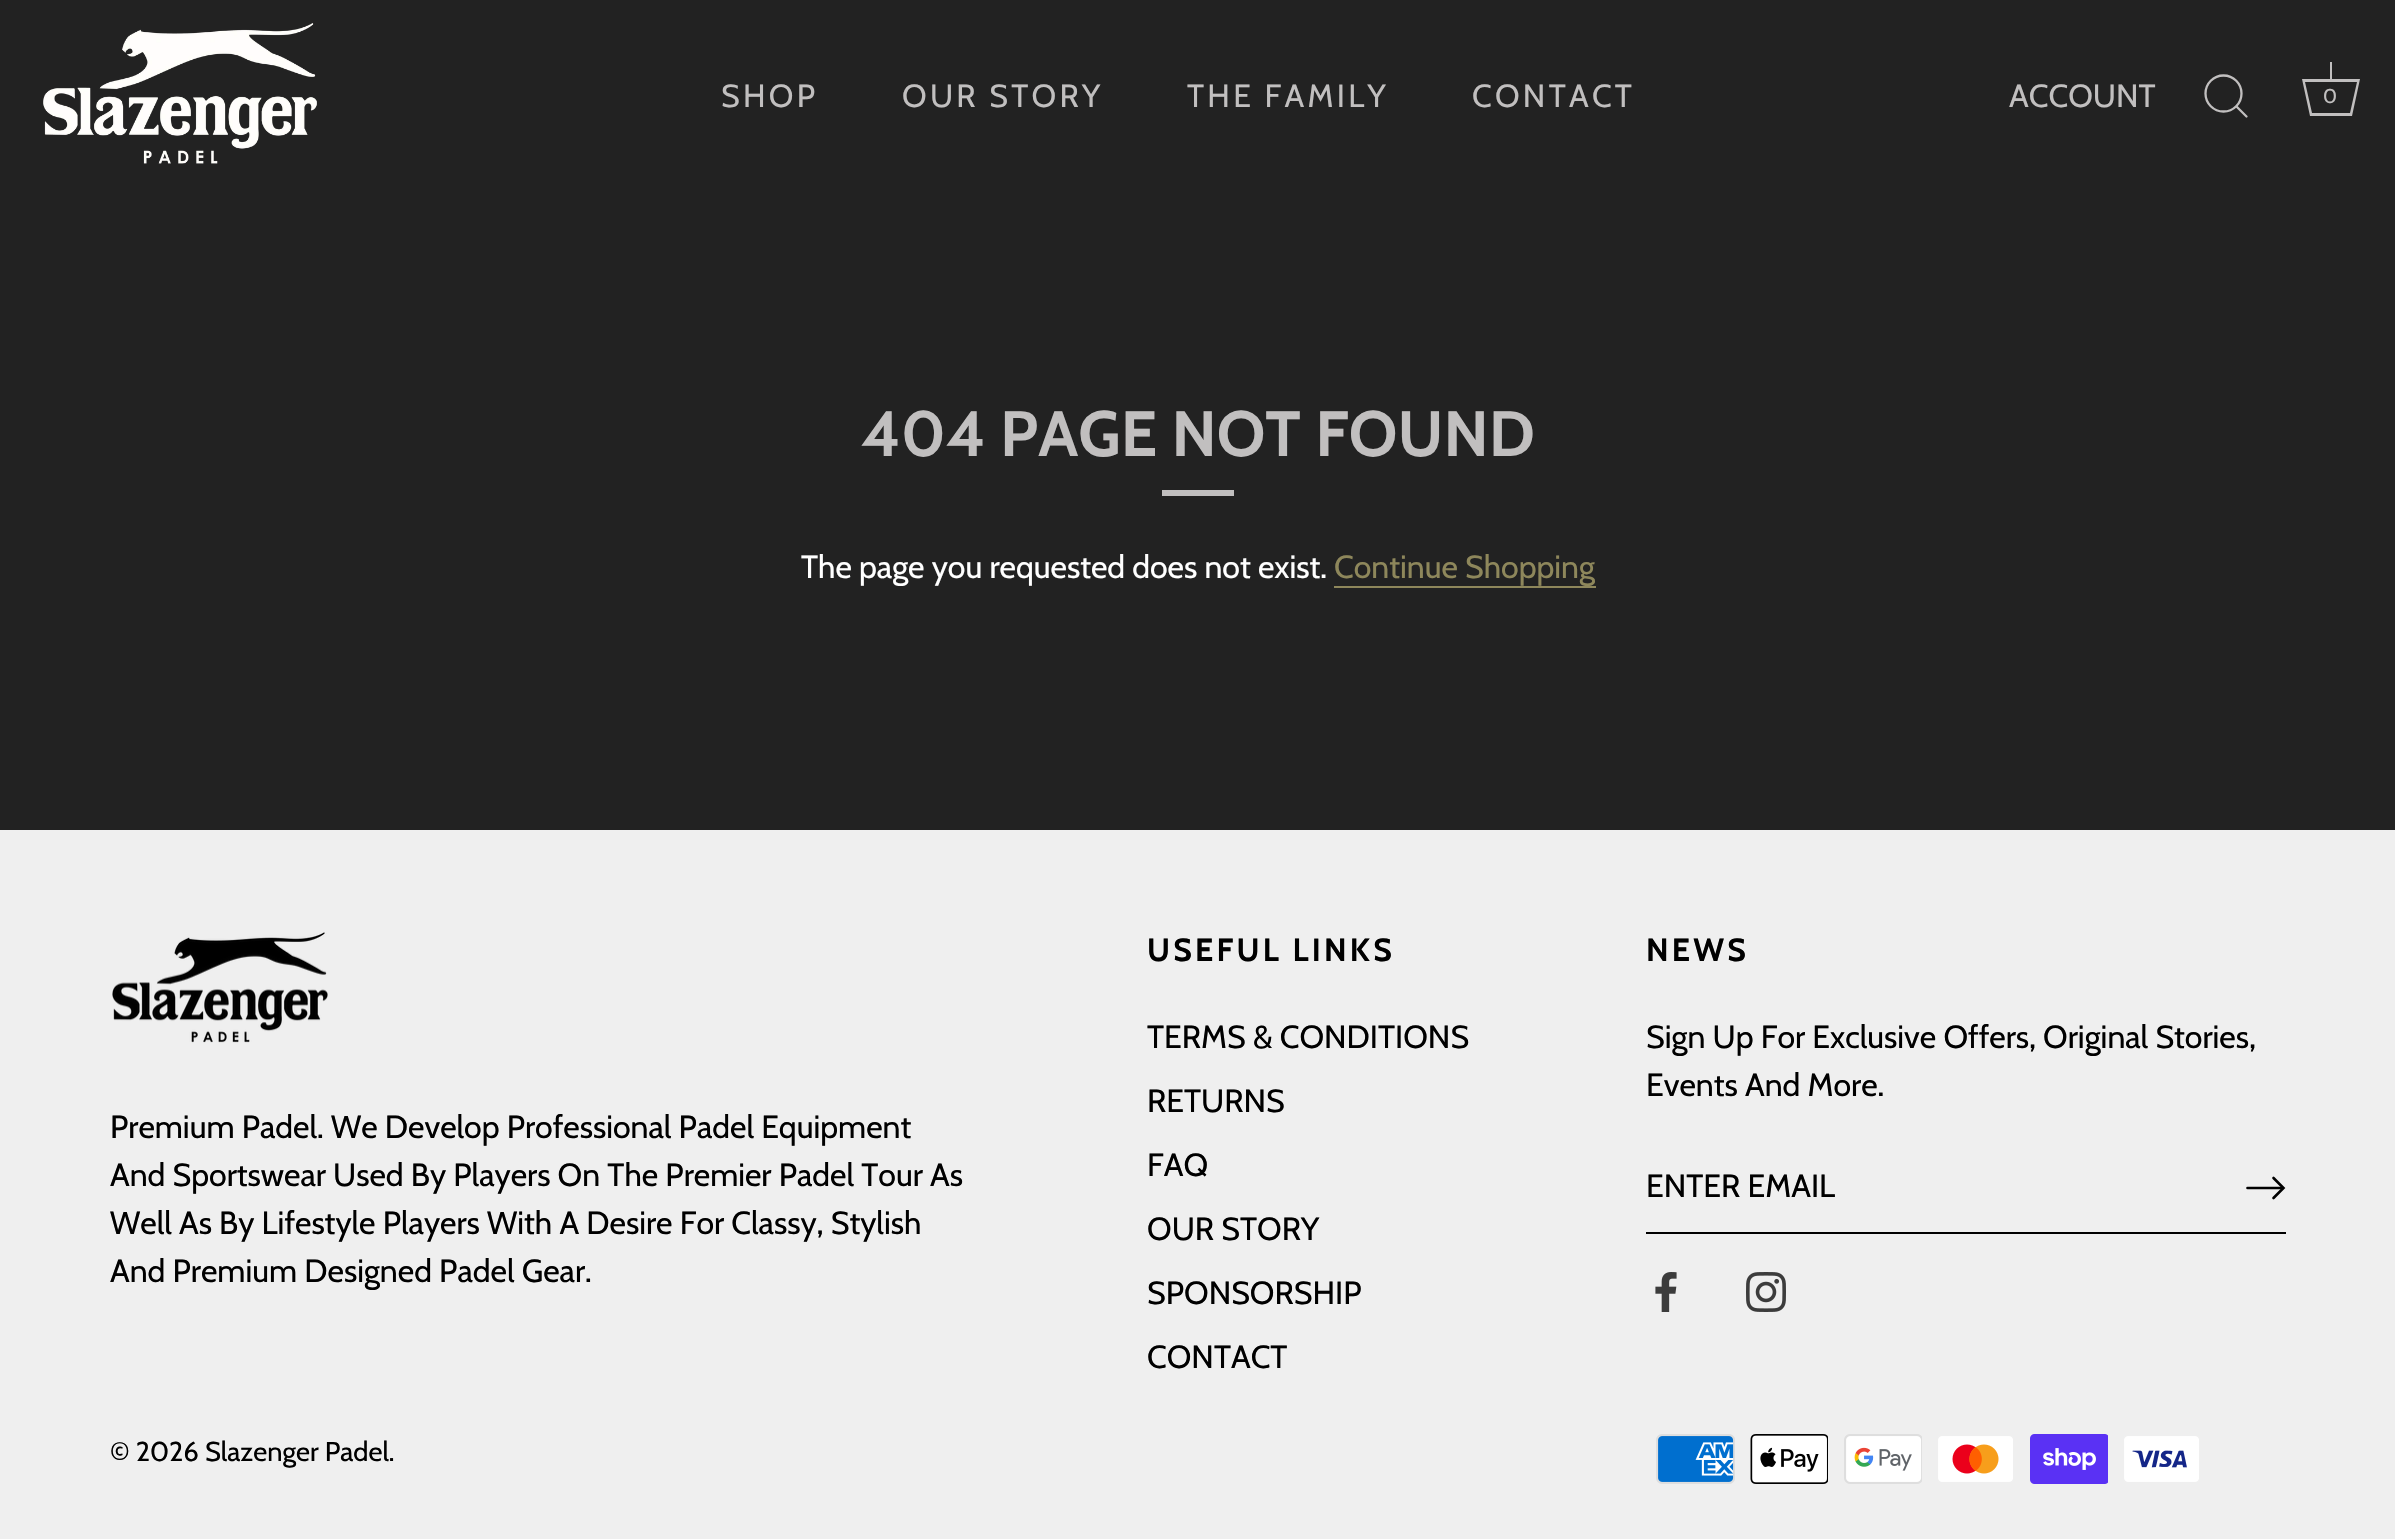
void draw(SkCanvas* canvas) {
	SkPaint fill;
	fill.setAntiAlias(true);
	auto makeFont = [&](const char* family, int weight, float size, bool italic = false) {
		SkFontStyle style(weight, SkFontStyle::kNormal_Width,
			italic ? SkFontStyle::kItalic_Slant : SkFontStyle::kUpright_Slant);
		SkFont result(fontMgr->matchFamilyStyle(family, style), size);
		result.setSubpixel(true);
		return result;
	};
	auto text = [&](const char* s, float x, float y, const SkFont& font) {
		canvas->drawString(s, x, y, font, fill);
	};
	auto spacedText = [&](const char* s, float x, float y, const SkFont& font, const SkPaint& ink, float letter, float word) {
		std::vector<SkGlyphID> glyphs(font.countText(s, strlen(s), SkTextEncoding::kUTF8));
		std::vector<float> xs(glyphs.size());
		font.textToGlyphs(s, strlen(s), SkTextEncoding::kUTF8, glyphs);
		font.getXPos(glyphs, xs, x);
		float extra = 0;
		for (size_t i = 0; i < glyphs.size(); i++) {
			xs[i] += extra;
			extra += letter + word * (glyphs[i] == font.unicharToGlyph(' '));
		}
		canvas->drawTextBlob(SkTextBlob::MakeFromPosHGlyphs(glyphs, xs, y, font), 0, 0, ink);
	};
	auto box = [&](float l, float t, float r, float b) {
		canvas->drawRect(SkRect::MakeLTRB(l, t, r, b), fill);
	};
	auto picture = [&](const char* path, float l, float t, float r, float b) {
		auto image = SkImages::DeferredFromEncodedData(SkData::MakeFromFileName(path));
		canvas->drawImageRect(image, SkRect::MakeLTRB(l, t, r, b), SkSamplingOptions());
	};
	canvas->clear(0xFF222222);
	picture("image0.png", 43, 23, 317, 164);
	fill.setStyle(SkPaint::kStroke_Style);
	fill.setStrokeWidth(2.3f);
	fill.setColor(0xFFC1BFBF);
	canvas->drawCircle(2223.5f, 93.5f, 18, fill);
	fill.setStrokeCap(SkPaint::kRound_Cap);
	fill.setStrokeJoin(SkPaint::kRound_Join);
	canvas->drawPath(SkPathBuilder().moveTo(2246.5f, 116.5f).lineTo(2236.5f, 106.5f).detach(), fill);
	fill.setStyle(SkPaint::kFill_Style);
	box(2330, 62, 2332, 79);
	canvas->drawPath(SkPathBuilder().moveTo(2357, 82).lineTo(2350, 113).lineTo(2312, 113).lineTo(2305, 82).lineTo(2357, 82).moveTo(2360, 79).lineTo(2302, 79).lineTo(2310, 116).lineTo(2352, 116).close().detach(), fill);
	box(1162, 490, 1234, 496);
	fill.setColor(0xFF8E875B);
	box(1334, 586, 1596, 588);
	fill.setColor(0xFFEFEFEF);
	box(0, 830, 2395, 1539);
	picture("image1.png", 112, 932, 328, 1043);
	fill.setColor(0xFF000000);
	box(1646, 1232, 2286, 1234);
	fill.setStyle(SkPaint::kStroke_Style);
	fill.setStrokeWidth(2.6f);
	fill.setStrokeJoin(SkPaint::kMiter_Join);
	canvas->drawPath(SkPathBuilder().moveTo(2273.5f, 1198).lineTo(2283.5f, 1188).lineTo(2273.5f, 1178).detach(), fill);
	fill.setStrokeJoin(SkPaint::kRound_Join);
	canvas->drawPath(SkPathBuilder().moveTo(2282.5f, 1188).lineTo(2247.5f, 1188).detach(), fill);
	picture("image2.png", 1655, 1272, 1677, 1312);
	picture("image3.png", 1746, 1272, 1786, 1312);
	picture("image4.png", 1656, 1434, 1735, 1484);
	picture("image5.png", 1750, 1434, 1828, 1484);
	picture("image6.png", 1844, 1434, 1922, 1484);
	picture("image7.png", 1938, 1436, 2013, 1482);
	picture("image8.png", 2030, 1434, 2108, 1484);
	picture("image9.png", 2124, 1436, 2199, 1482);
	auto font1 = makeFont("Cabin", 400, 32);
	fill.setStyle(SkPaint::kFill_Style);
	fill.setColor(0xFFC1BFBF);
	spacedText("SHOP", 721, 107, font1, fill, 3.25f, 0);
	spacedText("OUR STORY", 902, 107, font1, fill, 3.25f, 0);
	spacedText("THE FAMILY", 1187, 107, font1, fill, 3.25f, 0);
	spacedText("CONTACT", 1472, 107, font1, fill, 3.25f, 0);
	text("ACCOUNT", 2009, 107, font1);
	auto font2 = makeFont("Cabin", 400, 20);
	text("0", 2323, 103, font2);
	auto font3 = makeFont("Cabin", 700, 64);
	text("404 PAGE NOT FOUND", 861, 456, font3);
	fill.setColor(0xFFFFFFFF);
	text("The page you requested does not exist.", 801, 578, font1);
	fill.setColor(0xFF8E875B);
	text("Continue Shopping", 1334, 578, font1);
	fill.setColor(0xFF000000);
	text("Premium Padel. We Develop Professional Padel Equipment", 110, 1138, font1);
	text("And Sportswear Used By Players On The Premier Padel Tour As", 110, 1186, font1);
	text("Well As By Lifestyle Players With A Desire For Classy, Stylish", 110, 1234, font1);
	text("And Premium Designed Padel Gear.", 110, 1282, font1);
	auto font4 = makeFont("Cabin", 700, 32);
	spacedText("USEFUL LINKS", 1147, 961, font4, fill, 3.25f, 0);
	text("TERMS & CONDITIONS", 1147, 1048, font1);
	text("RETURNS", 1147, 1112, font1);
	text("FAQ", 1147, 1176, font1);
	text("OUR STORY", 1147, 1240, font1);
	text("SPONSORSHIP", 1147, 1304, font1);
	text("CONTACT", 1147, 1368, font1);
	spacedText("NEWS", 1646, 961, font4, fill, 3.25f, 0);
	text("Sign Up For Exclusive Offers, Original Stories,", 1646, 1048, font1);
	text("Events And More.", 1646, 1096, font1);
	text("ENTER EMAIL", 1646, 1197, font1);
	auto font5 = makeFont("Cabin", 400, 27.25f);
	text("© 2026 Slazenger Padel.", 110, 1461, font5);
}
